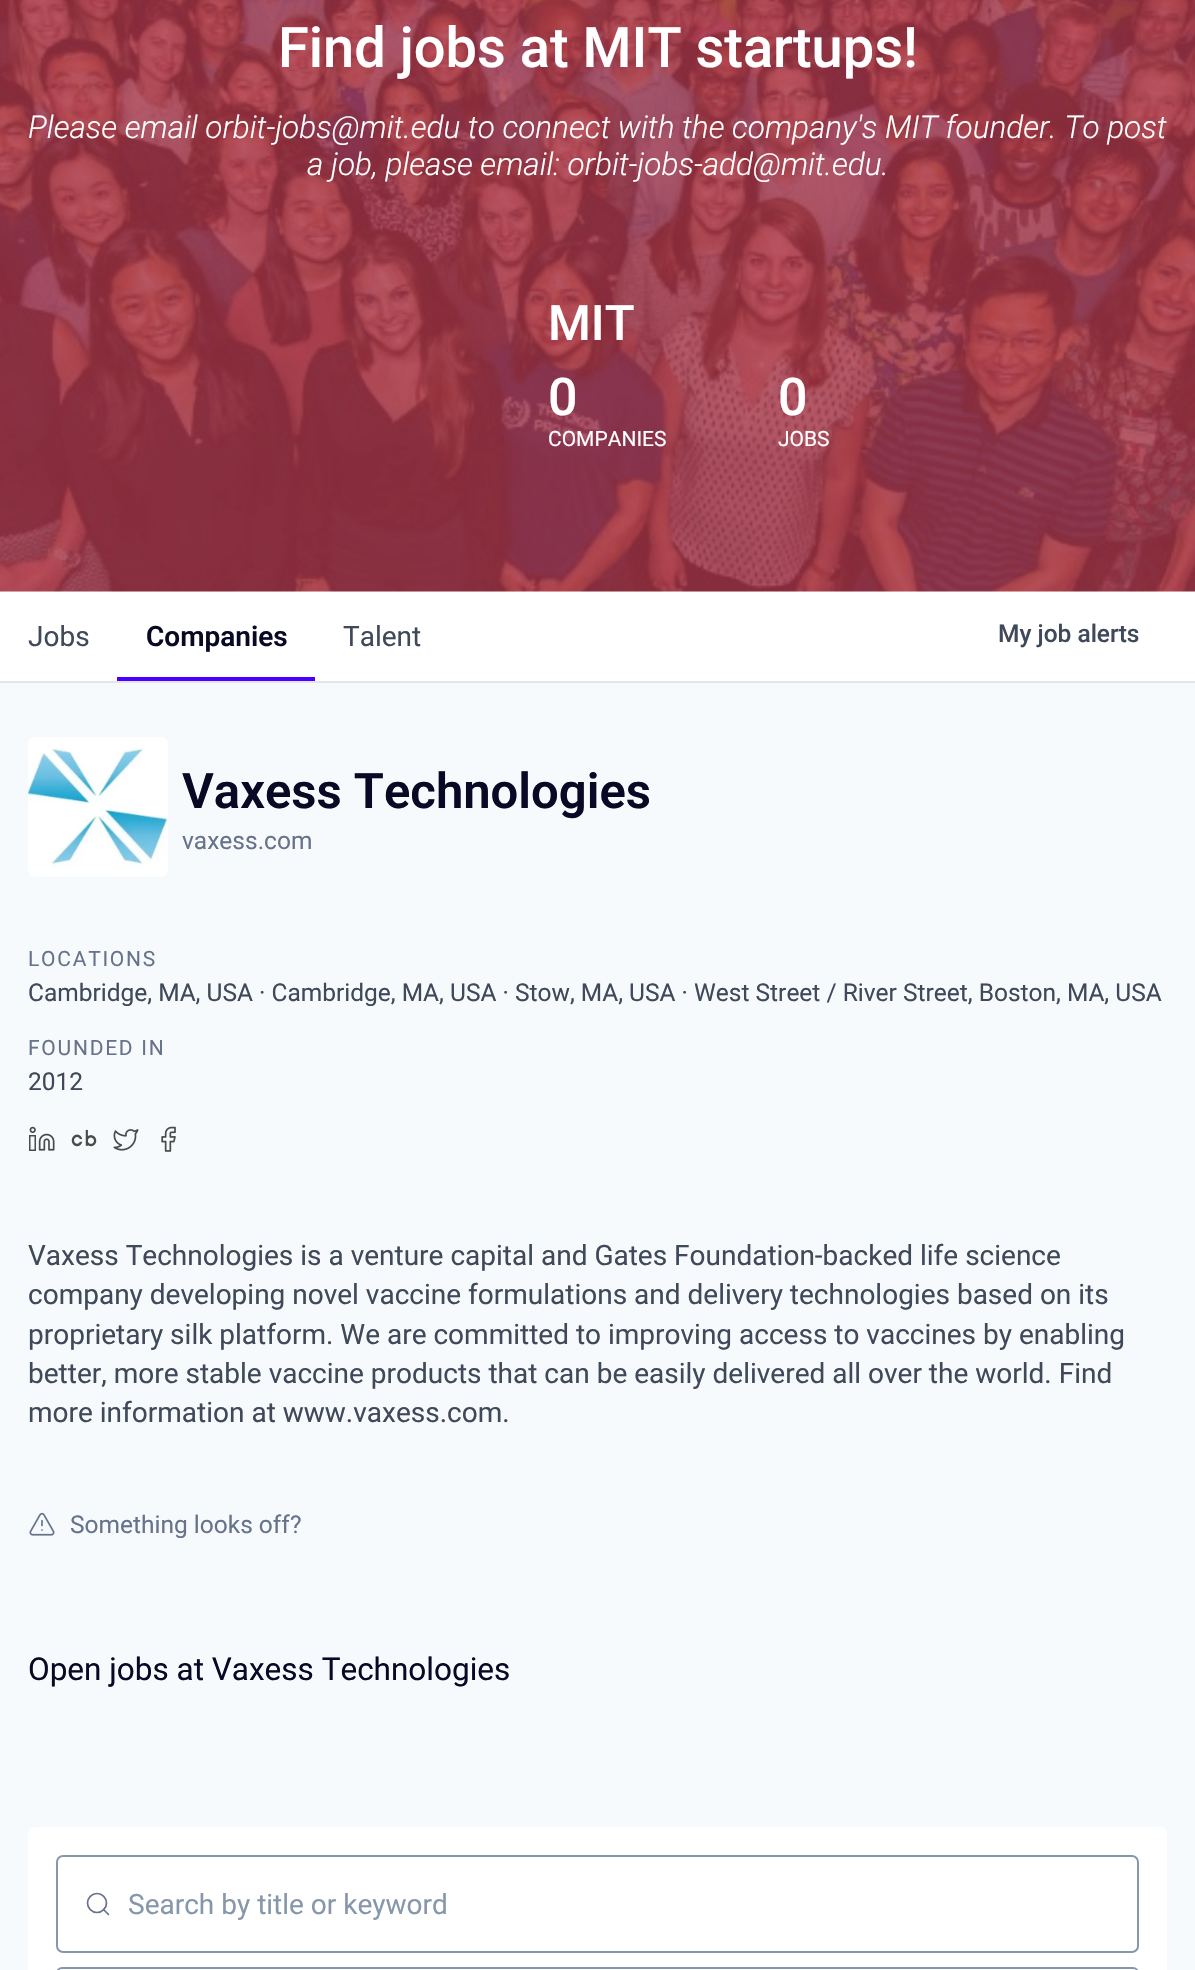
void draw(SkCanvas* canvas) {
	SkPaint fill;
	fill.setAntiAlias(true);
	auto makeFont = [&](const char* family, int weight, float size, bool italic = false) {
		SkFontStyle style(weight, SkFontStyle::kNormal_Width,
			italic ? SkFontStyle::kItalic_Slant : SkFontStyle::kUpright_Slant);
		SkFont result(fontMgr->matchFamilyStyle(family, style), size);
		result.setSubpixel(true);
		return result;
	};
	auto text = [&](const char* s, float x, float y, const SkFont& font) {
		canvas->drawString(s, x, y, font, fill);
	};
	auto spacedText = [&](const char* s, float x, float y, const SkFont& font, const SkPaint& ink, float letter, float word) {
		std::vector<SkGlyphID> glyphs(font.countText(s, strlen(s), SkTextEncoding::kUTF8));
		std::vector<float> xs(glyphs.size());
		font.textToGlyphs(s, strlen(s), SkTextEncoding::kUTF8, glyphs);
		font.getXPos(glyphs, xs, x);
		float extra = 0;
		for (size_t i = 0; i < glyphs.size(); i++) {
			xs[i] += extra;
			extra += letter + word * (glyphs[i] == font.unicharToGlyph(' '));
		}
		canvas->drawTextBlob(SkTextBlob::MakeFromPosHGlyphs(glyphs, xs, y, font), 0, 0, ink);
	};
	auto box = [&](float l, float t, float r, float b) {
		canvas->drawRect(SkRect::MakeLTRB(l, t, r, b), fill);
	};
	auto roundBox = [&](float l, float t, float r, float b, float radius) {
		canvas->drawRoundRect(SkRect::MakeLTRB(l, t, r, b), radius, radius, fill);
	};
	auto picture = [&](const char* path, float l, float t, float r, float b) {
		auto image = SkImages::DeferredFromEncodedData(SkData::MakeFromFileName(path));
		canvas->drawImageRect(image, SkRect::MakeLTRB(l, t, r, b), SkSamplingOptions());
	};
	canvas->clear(0xFFF7FAFC);
	picture("image0.png", 0, 0, 1195, 592);
	fill.setColor(0xFFE5E5E5);
	box(0, 681, 1195, 683);
	fill.setColor(0xFFFFFFFF);
	box(0, 592, 1195, 681);
	fill.setColor(0xFF4900FF);
	box(117, 677, 315, 681);
	picture("image1.png", 28, 737, 168, 877);
	picture("image2.png", 29, 1126, 55, 1151);
	picture("image3.png", 71, 1129, 97, 1147);
	picture("image4.png", 113, 1129, 139, 1151);
	picture("image5.png", 161, 1126, 176, 1152);
	picture("image6.png", 29, 1512, 55, 1536);
	fill.setColor(0xFFFFFFFF);
	roundBox(28, 1827, 1167, 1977, 7);
	fill.setStyle(SkPaint::kStroke_Style);
	fill.setStrokeWidth(2);
	fill.setColor(0xFF8797AB);
	canvas->drawRoundRect(SkRect::MakeLTRB(57, 1856, 1138, 1952), 6, 6, fill);
	fill.setStrokeWidth(1.7f);
	fill.setColor(0xFF67738B);
	canvas->drawCircle(97, 1903, 9.5f, fill);
	fill.setStrokeCap(SkPaint::kRound_Cap);
	fill.setStrokeJoin(SkPaint::kRound_Join);
	canvas->drawPath(SkPathBuilder().moveTo(108.5f, 1914.5f).lineTo(103.5f, 1909.5f).detach(), fill);
	fill.setStrokeWidth(2);
	fill.setStrokeCap(SkPaint::kButt_Cap);
	fill.setStrokeJoin(SkPaint::kMiter_Join);
	fill.setColor(0xFF8797AB);
	canvas->drawRoundRect(SkRect::MakeLTRB(57, 1968, 1138, 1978), 6, 6, fill);
	auto font1 = makeFont("Roboto", 500, 56);
	fill.setStyle(SkPaint::kFill_Style);
	fill.setColor(0xFFFFFFFF);
	text("Find jobs at MIT startups!", 278, 67, font1);
	auto font2 = makeFont("Roboto", 300, 31.5f, true);
	text("Please email orbit-jobs@mit.edu to connect with the company's MIT founder. To post", 28, 138, font2);
	text("a job, please email: orbit-jobs-add@mit.edu.", 307, 175, font2);
	auto font3 = makeFont("Roboto", 500, 49);
	text("MIT", 548, 340, font3);
	auto font4 = makeFont("Roboto", 500, 52);
	text("0", 548, 415, font4);
	auto font5 = makeFont("Roboto", 400, 21);
	text("COMPANIES", 548, 446, font5);
	text("0", 778, 415, font4);
	text("JOBS", 778, 446, font5);
	auto font6 = makeFont("Roboto", 400, 28);
	fill.setColor(0xFF3F495A);
	text("Jobs", 28, 646, font6);
	auto font7 = makeFont("Roboto", 600, 28);
	fill.setColor(0xFF090925);
	text("Companies", 146, 646, font7);
	fill.setColor(0xFF3F495A);
	text("Talent", 343, 646, font6);
	auto font8 = makeFont("Roboto", 500, 24.5f);
	text("My job alerts", 998, 642, font8);
	auto font9 = makeFont("Roboto", 600, 49);
	fill.setColor(0xFF090925);
	text("Vaxess Technologies", 182, 808, font9);
	auto font10 = makeFont("Roboto", 400, 24.5f);
	fill.setColor(0xFF67738B);
	text("vaxess.com", 182, 849, font10);
	spacedText("LOCATIONS", 28, 966, font5, fill, 1.75f, 0);
	fill.setColor(0xFF3F495A);
	text("Cambridge, MA, USA · Cambridge, MA, USA · Stow, MA, USA · West Street / River Street, Boston, MA, USA", 28, 1001, font10);
	fill.setColor(0xFF67738B);
	spacedText("FOUNDED IN", 28, 1055, font5, fill, 1.75f, 0);
	fill.setColor(0xFF3F495A);
	text("2012", 28, 1090, font10);
	text("Vaxess Technologies is a venture capital and Gates Foundation-backed life science", 28, 1265, font6);
	text("company developing novel vaccine formulations and delivery technologies based on its", 28, 1304, font6);
	text("proprietary silk platform. We are committed to improving access to vaccines by enabling", 28, 1344, font6);
	text("better, more stable vaccine products that can be easily delivered all over the world. Find", 28, 1383, font6);
	text("more information at www.vaxess.com.", 28, 1422, font6);
	fill.setColor(0xFF67738B);
	text("Something looks off?", 70, 1533, font10);
	auto font11 = makeFont("Roboto", 400, 31.5f);
	fill.setColor(0xFF090925);
	text("Open jobs at Vaxess Technologies", 28, 1680, font11);
	fill.setColor(0xFF8797AB);
	text("Search by title or keyword", 128, 1914, font6);
}
